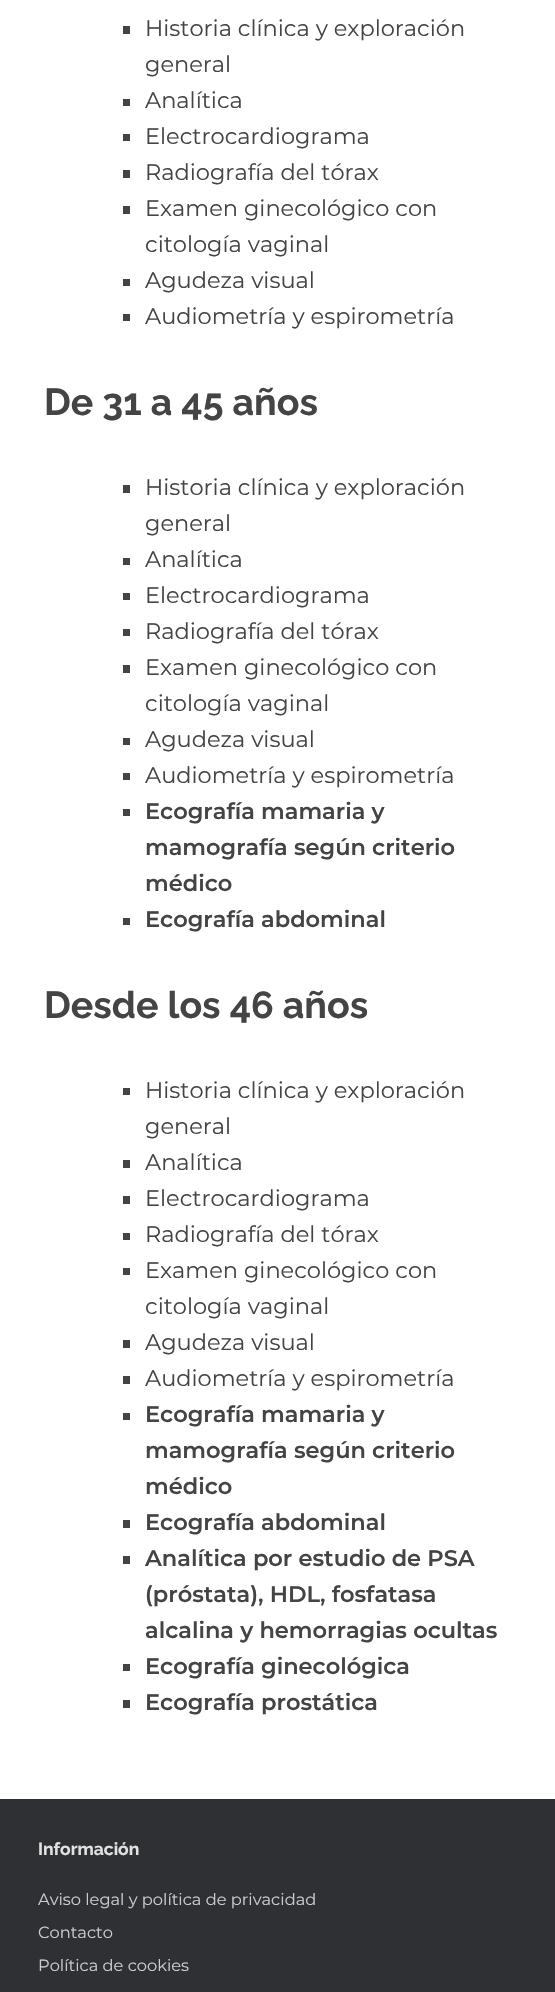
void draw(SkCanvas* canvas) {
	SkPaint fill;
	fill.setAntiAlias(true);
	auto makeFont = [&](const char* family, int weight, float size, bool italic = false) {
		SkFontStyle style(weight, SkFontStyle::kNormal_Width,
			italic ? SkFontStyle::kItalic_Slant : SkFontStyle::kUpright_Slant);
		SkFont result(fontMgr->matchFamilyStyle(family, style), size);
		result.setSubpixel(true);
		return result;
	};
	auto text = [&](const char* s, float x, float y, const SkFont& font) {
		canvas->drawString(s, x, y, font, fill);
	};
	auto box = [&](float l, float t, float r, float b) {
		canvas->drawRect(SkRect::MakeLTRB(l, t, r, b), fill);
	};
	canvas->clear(0xFF2F3033);
	fill.setColor(0xFFFFFFFF);
	box(0, 0, 555, 1799);
	fill.setColor(0xFF444444);
	box(123, 26, 130, 34);
	box(123, 99, 130, 106);
	box(123, 134, 130, 141);
	box(123, 170, 130, 178);
	box(123, 206, 130, 214);
	box(123, 279, 130, 286);
	box(123, 314, 130, 321);
	box(123, 485, 130, 493);
	box(123, 558, 130, 565);
	box(123, 593, 130, 600);
	box(123, 629, 130, 636);
	box(123, 665, 130, 673);
	box(123, 738, 130, 745);
	box(123, 773, 130, 780);
	box(123, 809, 130, 816);
	box(123, 918, 130, 925);
	box(123, 1088, 130, 1095);
	box(123, 1160, 130, 1168);
	box(123, 1196, 130, 1204);
	box(123, 1233, 130, 1240);
	box(123, 1268, 130, 1275);
	box(123, 1340, 130, 1348);
	box(123, 1376, 130, 1384);
	box(123, 1413, 130, 1420);
	box(123, 1520, 130, 1528);
	box(123, 1556, 130, 1564);
	box(123, 1664, 130, 1671);
	box(123, 1700, 130, 1708);
	auto font1 = makeFont("Montserrat", 400, 22.5f);
	text("Historia clínica y exploración", 145, 36, font1);
	text("general", 145, 72, font1);
	text("Analítica", 145, 108, font1);
	text("Electrocardiograma", 145, 144, font1);
	text("Radiografía del tórax", 145, 180, font1);
	text("Examen ginecológico con", 145, 216, font1);
	text("citología vaginal", 145, 252, font1);
	text("Agudeza visual", 145, 288, font1);
	text("Audiometría y espirometría", 145, 324, font1);
	auto font2 = makeFont("Raleway", 100, 37.5f);
	text("De 31 a 45 años", 44, 415, font2);
	text("Historia clínica y exploración", 145, 495, font1);
	text("general", 145, 531, font1);
	text("Analítica", 145, 567, font1);
	text("Electrocardiograma", 145, 603, font1);
	text("Radiografía del tórax", 145, 639, font1);
	text("Examen ginecológico con", 145, 675, font1);
	text("citología vaginal", 145, 711, font1);
	text("Agudeza visual", 145, 747, font1);
	text("Audiometría y espirometría", 145, 783, font1);
	auto font3 = makeFont("Montserrat", 600, 22.5f);
	text("Ecografía mamaria y", 145, 819, font3);
	text("mamografía según criterio", 145, 855, font3);
	text("médico", 145, 891, font3);
	text("Ecografía abdominal", 145, 927, font3);
	text("Desde los 46 años", 44, 1018, font2);
	text("Historia clínica y exploración", 145, 1098, font1);
	text("general", 145, 1134, font1);
	text("Analítica", 145, 1170, font1);
	text("Electrocardiograma", 145, 1206, font1);
	text("Radiografía del tórax", 145, 1242, font1);
	text("Examen ginecológico con", 145, 1278, font1);
	text("citología vaginal", 145, 1314, font1);
	text("Agudeza visual", 145, 1350, font1);
	text("Audiometría y espirometría", 145, 1386, font1);
	text("Ecografía mamaria y", 145, 1422, font3);
	text("mamografía según criterio", 145, 1458, font3);
	text("médico", 145, 1494, font3);
	text("Ecografía abdominal", 145, 1530, font3);
	text("Analítica por estudio de PSA", 145, 1566, font3);
	text("(próstata), HDL, fosfatasa", 145, 1602, font3);
	text("alcalina y hemorragias ocultas", 145, 1638, font3);
	text("Ecografía ginecológica", 145, 1674, font3);
	text("Ecografía prostática", 145, 1710, font3);
	auto font4 = makeFont("Raleway", 100, 17.5f);
	fill.setColor(0xFFE2E2E2);
	text("Información", 38, 1855, font4);
	auto font5 = makeFont("Montserrat", 400, 16.25f);
	fill.setColor(0xFFCCCCCC);
	text("Aviso legal y política de privacidad", 38, 1905, font5);
	text("Contacto", 38, 1938, font5);
	text("Política de cookies", 38, 1971, font5);
}
